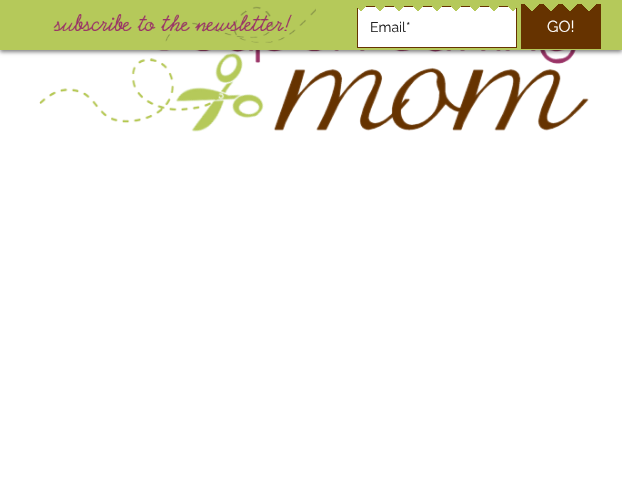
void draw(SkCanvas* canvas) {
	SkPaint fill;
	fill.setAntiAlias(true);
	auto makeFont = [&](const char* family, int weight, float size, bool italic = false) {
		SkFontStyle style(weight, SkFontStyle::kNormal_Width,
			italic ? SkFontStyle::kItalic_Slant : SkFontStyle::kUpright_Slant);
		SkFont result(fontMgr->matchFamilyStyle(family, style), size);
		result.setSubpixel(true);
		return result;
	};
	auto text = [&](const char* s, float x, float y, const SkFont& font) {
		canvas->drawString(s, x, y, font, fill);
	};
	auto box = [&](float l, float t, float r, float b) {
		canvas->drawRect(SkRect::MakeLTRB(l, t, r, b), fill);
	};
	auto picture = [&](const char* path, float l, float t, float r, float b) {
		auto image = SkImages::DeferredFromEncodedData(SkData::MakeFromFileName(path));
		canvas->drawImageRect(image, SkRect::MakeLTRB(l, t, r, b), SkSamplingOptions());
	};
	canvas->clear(0xFFFFFFFF);
	picture("image3.png", 39, 50, 589, 132);
	fill.setColor(0x80000000);
	fill.setMaskFilter(SkMaskFilter::MakeBlur(kNormal_SkBlurStyle, 2));
	canvas->drawRect(SkRect::MakeLTRB(0, 2, 622, 52), fill);
	fill.setMaskFilter(nullptr);
	fill.setColor(0xFFB5C95A);
	box(0, 0, 622, 50);
	picture("image2.png", 53, 6, 316, 43);
	fill.setColor(0xFFFFFFFF);
	canvas->drawRect(SkRect::MakeLTRB(357.5f, 6.5f, 516.5f, 47.5f), fill);
	fill.setStyle(SkPaint::kStroke_Style);
	fill.setStrokeWidth(1);
	fill.setColor(0xFF663300);
	canvas->drawRect(SkRect::MakeLTRB(357.5f, 6.5f, 516.5f, 47.5f), fill);
	fill.setStyle(SkPaint::kFill_Style);
	box(521, 4, 601, 49);
	picture("image0.png", 246, 4, 589, 11);
	picture("image1.png", 266, 4, 596, 11);
	auto font1 = makeFont("Raleway", 100, 14);
	fill.setColor(0xFF222222);
	text("Email*", 370, 32, font1);
	auto font2 = makeFont("Raleway", 100, 16);
	fill.setColor(0xFFFFFFFF);
	text("GO!", 547, 32, font2);
}
